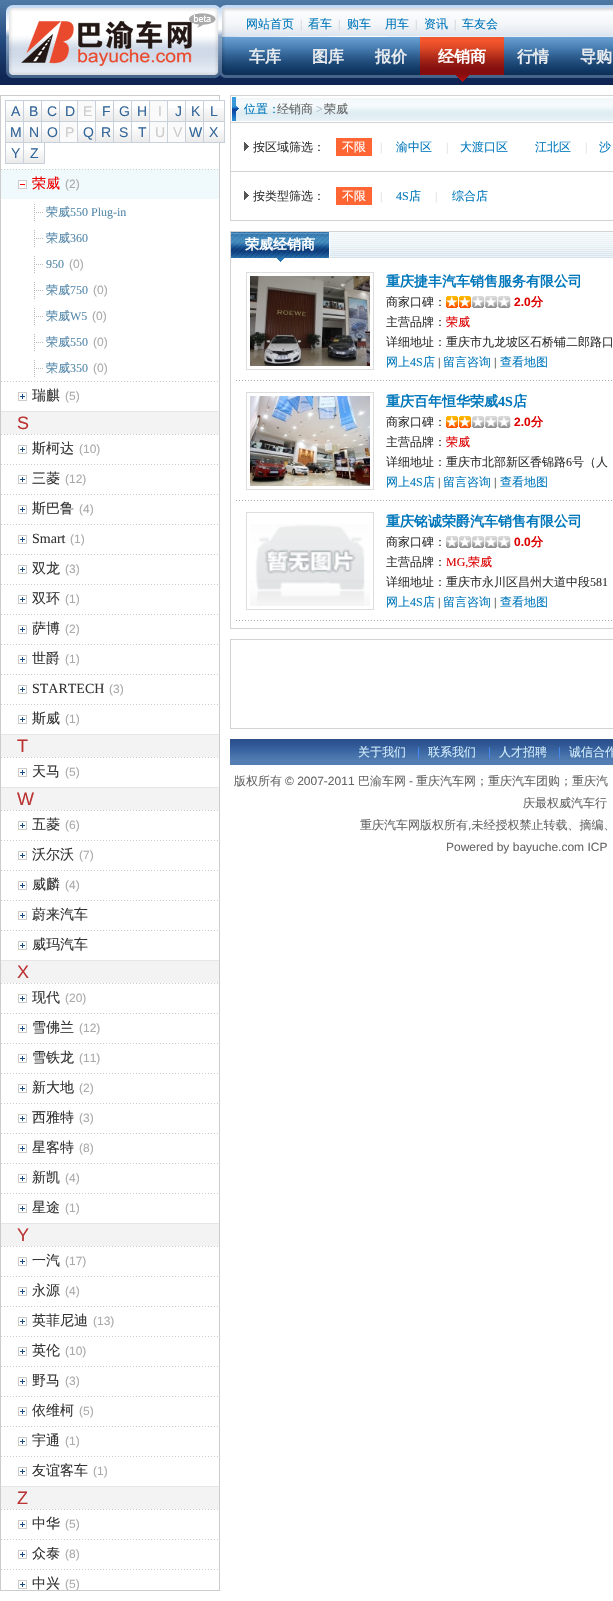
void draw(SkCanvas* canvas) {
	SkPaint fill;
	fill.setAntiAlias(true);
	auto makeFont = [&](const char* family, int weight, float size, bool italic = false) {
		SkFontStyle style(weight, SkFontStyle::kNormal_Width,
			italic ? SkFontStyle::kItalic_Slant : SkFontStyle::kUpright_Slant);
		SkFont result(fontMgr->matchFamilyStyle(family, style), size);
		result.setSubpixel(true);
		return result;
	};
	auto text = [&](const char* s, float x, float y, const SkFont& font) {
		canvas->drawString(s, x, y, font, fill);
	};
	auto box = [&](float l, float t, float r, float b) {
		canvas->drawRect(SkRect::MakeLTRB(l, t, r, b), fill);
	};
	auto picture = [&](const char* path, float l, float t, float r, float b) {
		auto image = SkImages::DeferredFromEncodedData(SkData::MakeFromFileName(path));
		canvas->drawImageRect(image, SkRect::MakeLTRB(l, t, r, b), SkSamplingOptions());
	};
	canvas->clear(0xFFFFFFFF);
	picture("image0.png", 0, 0, 613, 85);
	picture("image1.png", 21, 13, 216, 66);
	picture("image2.png", 420, 37, 504, 82);
	fill.setStyle(SkPaint::kStroke_Style);
	fill.setStrokeWidth(1);
	fill.setColor(0xFFCCCCCC);
	canvas->drawRect(SkRect::MakeLTRB(0.5f, 95.5f, 219.5f, 1590.5f), fill);
	picture("image3.png", 6, 108, 23, 121);
	fill.setColor(0xFFC7D0DB);
	canvas->drawRect(SkRect::MakeLTRB(5.5f, 100.5f, 26.5f, 121.5f), fill);
	fill.setStyle(SkPaint::kFill_Style);
	fill.setColor(0xFFFFFFFF);
	box(24, 101, 27, 108);
	picture("image3.png", 24, 108, 41, 121);
	fill.setStyle(SkPaint::kStroke_Style);
	fill.setColor(0xFFC7D0DB);
	canvas->drawRect(SkRect::MakeLTRB(23.5f, 100.5f, 44.5f, 121.5f), fill);
	fill.setStyle(SkPaint::kFill_Style);
	fill.setColor(0xFFFFFFFF);
	box(42, 101, 45, 108);
	picture("image3.png", 42, 108, 59, 121);
	fill.setStyle(SkPaint::kStroke_Style);
	fill.setColor(0xFFC7D0DB);
	canvas->drawRect(SkRect::MakeLTRB(41.5f, 100.5f, 62.5f, 121.5f), fill);
	fill.setStyle(SkPaint::kFill_Style);
	fill.setColor(0xFFFFFFFF);
	box(60, 101, 63, 108);
	picture("image3.png", 60, 108, 77, 121);
	fill.setStyle(SkPaint::kStroke_Style);
	fill.setColor(0xFFC7D0DB);
	canvas->drawRect(SkRect::MakeLTRB(59.5f, 100.5f, 80.5f, 121.5f), fill);
	fill.setStyle(SkPaint::kFill_Style);
	fill.setColor(0xFFFAFAFA);
	box(78, 101, 95, 121);
	fill.setStyle(SkPaint::kStroke_Style);
	fill.setColor(0xFFC7D0DB);
	canvas->drawRect(SkRect::MakeLTRB(77.5f, 100.5f, 98.5f, 121.5f), fill);
	fill.setStyle(SkPaint::kFill_Style);
	fill.setColor(0xFFFFFFFF);
	box(96, 101, 99, 108);
	picture("image3.png", 96, 108, 113, 121);
	fill.setStyle(SkPaint::kStroke_Style);
	fill.setColor(0xFFC7D0DB);
	canvas->drawRect(SkRect::MakeLTRB(95.5f, 100.5f, 116.5f, 121.5f), fill);
	fill.setStyle(SkPaint::kFill_Style);
	fill.setColor(0xFFFFFFFF);
	box(114, 101, 117, 108);
	picture("image3.png", 114, 108, 131, 121);
	fill.setStyle(SkPaint::kStroke_Style);
	fill.setColor(0xFFC7D0DB);
	canvas->drawRect(SkRect::MakeLTRB(113.5f, 100.5f, 134.5f, 121.5f), fill);
	fill.setStyle(SkPaint::kFill_Style);
	fill.setColor(0xFFFFFFFF);
	box(132, 101, 135, 108);
	picture("image3.png", 132, 108, 149, 121);
	fill.setStyle(SkPaint::kStroke_Style);
	fill.setColor(0xFFC7D0DB);
	canvas->drawRect(SkRect::MakeLTRB(131.5f, 100.5f, 152.5f, 121.5f), fill);
	fill.setStyle(SkPaint::kFill_Style);
	fill.setColor(0xFFFAFAFA);
	box(150, 101, 167, 121);
	fill.setStyle(SkPaint::kStroke_Style);
	fill.setColor(0xFFC7D0DB);
	canvas->drawRect(SkRect::MakeLTRB(149.5f, 100.5f, 170.5f, 121.5f), fill);
	fill.setStyle(SkPaint::kFill_Style);
	fill.setColor(0xFFFFFFFF);
	box(168, 101, 171, 108);
	picture("image3.png", 168, 108, 185, 121);
	fill.setStyle(SkPaint::kStroke_Style);
	fill.setColor(0xFFC7D0DB);
	canvas->drawRect(SkRect::MakeLTRB(167.5f, 100.5f, 188.5f, 121.5f), fill);
	fill.setStyle(SkPaint::kFill_Style);
	fill.setColor(0xFFFFFFFF);
	box(186, 101, 189, 108);
	picture("image3.png", 186, 108, 203, 121);
	fill.setStyle(SkPaint::kStroke_Style);
	fill.setColor(0xFFC7D0DB);
	canvas->drawRect(SkRect::MakeLTRB(185.5f, 100.5f, 206.5f, 121.5f), fill);
	fill.setStyle(SkPaint::kFill_Style);
	fill.setColor(0xFFFFFFFF);
	box(204, 101, 224, 108);
	picture("image4.png", 204, 108, 224, 121);
	fill.setStyle(SkPaint::kStroke_Style);
	fill.setColor(0xFFC7D0DB);
	canvas->drawRect(SkRect::MakeLTRB(203.5f, 100.5f, 224.5f, 121.5f), fill);
	picture("image3.png", 6, 129, 23, 142);
	canvas->drawRect(SkRect::MakeLTRB(5.5f, 121.5f, 26.5f, 142.5f), fill);
	fill.setStyle(SkPaint::kFill_Style);
	fill.setColor(0xFFFFFFFF);
	box(24, 122, 27, 129);
	picture("image3.png", 24, 129, 41, 142);
	fill.setStyle(SkPaint::kStroke_Style);
	fill.setColor(0xFFC7D0DB);
	canvas->drawRect(SkRect::MakeLTRB(23.5f, 121.5f, 44.5f, 142.5f), fill);
	fill.setStyle(SkPaint::kFill_Style);
	fill.setColor(0xFFFFFFFF);
	box(42, 122, 45, 129);
	picture("image3.png", 42, 129, 59, 142);
	fill.setStyle(SkPaint::kStroke_Style);
	fill.setColor(0xFFC7D0DB);
	canvas->drawRect(SkRect::MakeLTRB(41.5f, 121.5f, 62.5f, 142.5f), fill);
	fill.setStyle(SkPaint::kFill_Style);
	fill.setColor(0xFFFAFAFA);
	box(60, 122, 77, 142);
	fill.setStyle(SkPaint::kStroke_Style);
	fill.setColor(0xFFC7D0DB);
	canvas->drawRect(SkRect::MakeLTRB(59.5f, 121.5f, 80.5f, 142.5f), fill);
	fill.setStyle(SkPaint::kFill_Style);
	fill.setColor(0xFFFFFFFF);
	box(78, 122, 81, 129);
	picture("image3.png", 78, 129, 95, 142);
	fill.setStyle(SkPaint::kStroke_Style);
	fill.setColor(0xFFC7D0DB);
	canvas->drawRect(SkRect::MakeLTRB(77.5f, 121.5f, 98.5f, 142.5f), fill);
	fill.setStyle(SkPaint::kFill_Style);
	fill.setColor(0xFFFFFFFF);
	box(96, 122, 99, 129);
	picture("image3.png", 96, 129, 113, 142);
	fill.setStyle(SkPaint::kStroke_Style);
	fill.setColor(0xFFC7D0DB);
	canvas->drawRect(SkRect::MakeLTRB(95.5f, 121.5f, 116.5f, 142.5f), fill);
	fill.setStyle(SkPaint::kFill_Style);
	fill.setColor(0xFFFFFFFF);
	box(114, 122, 117, 129);
	picture("image3.png", 114, 129, 131, 142);
	fill.setStyle(SkPaint::kStroke_Style);
	fill.setColor(0xFFC7D0DB);
	canvas->drawRect(SkRect::MakeLTRB(113.5f, 121.5f, 134.5f, 142.5f), fill);
	fill.setStyle(SkPaint::kFill_Style);
	fill.setColor(0xFFFFFFFF);
	box(132, 122, 135, 129);
	picture("image3.png", 132, 129, 149, 142);
	fill.setStyle(SkPaint::kStroke_Style);
	fill.setColor(0xFFC7D0DB);
	canvas->drawRect(SkRect::MakeLTRB(131.5f, 121.5f, 152.5f, 142.5f), fill);
	fill.setStyle(SkPaint::kFill_Style);
	fill.setColor(0xFFFAFAFA);
	box(150, 122, 167, 142);
	fill.setStyle(SkPaint::kStroke_Style);
	fill.setColor(0xFFC7D0DB);
	canvas->drawRect(SkRect::MakeLTRB(149.5f, 121.5f, 170.5f, 142.5f), fill);
	fill.setStyle(SkPaint::kFill_Style);
	fill.setColor(0xFFFAFAFA);
	box(168, 122, 185, 142);
	fill.setStyle(SkPaint::kStroke_Style);
	fill.setColor(0xFFC7D0DB);
	canvas->drawRect(SkRect::MakeLTRB(167.5f, 121.5f, 188.5f, 142.5f), fill);
	fill.setStyle(SkPaint::kFill_Style);
	fill.setColor(0xFFFFFFFF);
	box(186, 122, 189, 129);
	picture("image3.png", 186, 129, 203, 142);
	fill.setStyle(SkPaint::kStroke_Style);
	fill.setColor(0xFFC7D0DB);
	canvas->drawRect(SkRect::MakeLTRB(185.5f, 121.5f, 206.5f, 142.5f), fill);
	fill.setStyle(SkPaint::kFill_Style);
	fill.setColor(0xFFFFFFFF);
	box(204, 122, 224, 129);
	picture("image4.png", 204, 129, 224, 142);
	fill.setStyle(SkPaint::kStroke_Style);
	fill.setColor(0xFFC7D0DB);
	canvas->drawRect(SkRect::MakeLTRB(203.5f, 121.5f, 224.5f, 142.5f), fill);
	picture("image3.png", 6, 150, 23, 163);
	canvas->drawRect(SkRect::MakeLTRB(5.5f, 142.5f, 26.5f, 163.5f), fill);
	fill.setStyle(SkPaint::kFill_Style);
	fill.setColor(0xFFFFFFFF);
	box(24, 143, 27, 150);
	picture("image4.png", 24, 150, 44, 163);
	fill.setStyle(SkPaint::kStroke_Style);
	fill.setColor(0xFFC7D0DB);
	canvas->drawRect(SkRect::MakeLTRB(23.5f, 142.5f, 44.5f, 163.5f), fill);
	fill.setStyle(SkPaint::kFill_Style);
	fill.setColor(0xFFF0F9FC);
	box(1, 169, 219, 199);
	picture("image5.png", 1, 169, 218, 170);
	picture("image6.png", 18, 180, 27, 189);
	picture("image7.png", 34, 204, 43, 221);
	picture("image7.png", 34, 230, 43, 247);
	picture("image7.png", 34, 256, 43, 273);
	picture("image7.png", 34, 282, 43, 299);
	picture("image7.png", 34, 308, 43, 325);
	picture("image7.png", 34, 334, 43, 351);
	picture("image7.png", 34, 360, 43, 377);
	picture("image8.png", 1, 381, 218, 382);
	picture("image9.png", 18, 392, 27, 401);
	fill.setColor(0xFFF3F3F3);
	box(1, 412, 219, 434);
	fill.setColor(0xFFE6E6E6);
	box(1, 411, 219, 412);
	picture("image8.png", 1, 434, 218, 435);
	picture("image9.png", 18, 445, 27, 454);
	picture("image8.png", 1, 464, 218, 465);
	picture("image9.png", 18, 475, 27, 484);
	picture("image8.png", 1, 494, 218, 495);
	picture("image9.png", 18, 505, 27, 514);
	picture("image8.png", 1, 524, 218, 525);
	picture("image9.png", 18, 535, 27, 544);
	picture("image8.png", 1, 554, 218, 555);
	picture("image9.png", 18, 565, 27, 574);
	picture("image8.png", 1, 584, 218, 585);
	picture("image9.png", 18, 595, 27, 604);
	picture("image8.png", 1, 614, 218, 615);
	picture("image9.png", 18, 625, 27, 634);
	picture("image8.png", 1, 644, 218, 645);
	picture("image9.png", 18, 655, 27, 664);
	picture("image8.png", 1, 674, 218, 675);
	picture("image9.png", 18, 685, 27, 694);
	picture("image8.png", 1, 704, 218, 705);
	picture("image9.png", 18, 715, 27, 724);
	fill.setColor(0xFFF3F3F3);
	box(1, 735, 219, 757);
	fill.setColor(0xFFE6E6E6);
	box(1, 734, 219, 735);
	picture("image8.png", 1, 757, 218, 758);
	picture("image9.png", 18, 768, 27, 777);
	fill.setColor(0xFFF3F3F3);
	box(1, 788, 219, 810);
	fill.setColor(0xFFE6E6E6);
	box(1, 787, 219, 788);
	picture("image8.png", 1, 810, 218, 811);
	picture("image9.png", 18, 821, 27, 830);
	picture("image8.png", 1, 840, 218, 841);
	picture("image9.png", 18, 851, 27, 860);
	picture("image8.png", 1, 870, 218, 871);
	picture("image9.png", 18, 881, 27, 890);
	picture("image8.png", 1, 900, 218, 901);
	picture("image9.png", 18, 911, 27, 920);
	picture("image8.png", 1, 930, 218, 931);
	picture("image9.png", 18, 941, 27, 950);
	fill.setColor(0xFFF3F3F3);
	box(1, 961, 219, 983);
	fill.setColor(0xFFE6E6E6);
	box(1, 960, 219, 961);
	picture("image8.png", 1, 983, 218, 984);
	picture("image9.png", 18, 994, 27, 1003);
	picture("image8.png", 1, 1013, 218, 1014);
	picture("image9.png", 18, 1024, 27, 1033);
	picture("image8.png", 1, 1043, 218, 1044);
	picture("image9.png", 18, 1054, 27, 1063);
	picture("image8.png", 1, 1073, 218, 1074);
	picture("image9.png", 18, 1084, 27, 1093);
	picture("image8.png", 1, 1103, 218, 1104);
	picture("image9.png", 18, 1114, 27, 1123);
	picture("image8.png", 1, 1133, 218, 1134);
	picture("image9.png", 18, 1144, 27, 1153);
	picture("image8.png", 1, 1163, 218, 1164);
	picture("image9.png", 18, 1174, 27, 1183);
	picture("image8.png", 1, 1193, 218, 1194);
	picture("image9.png", 18, 1204, 27, 1213);
	fill.setColor(0xFFF3F3F3);
	box(1, 1224, 219, 1246);
	fill.setColor(0xFFE6E6E6);
	box(1, 1223, 219, 1224);
	picture("image8.png", 1, 1246, 218, 1247);
	picture("image9.png", 18, 1257, 27, 1266);
	picture("image8.png", 1, 1276, 218, 1277);
	picture("image9.png", 18, 1287, 27, 1296);
	picture("image8.png", 1, 1306, 218, 1307);
	picture("image9.png", 18, 1317, 27, 1326);
	picture("image8.png", 1, 1336, 218, 1337);
	picture("image9.png", 18, 1347, 27, 1356);
	picture("image8.png", 1, 1366, 218, 1367);
	picture("image9.png", 18, 1377, 27, 1386);
	picture("image8.png", 1, 1396, 218, 1397);
	picture("image9.png", 18, 1407, 27, 1416);
	picture("image8.png", 1, 1426, 218, 1427);
	picture("image9.png", 18, 1437, 27, 1446);
	picture("image8.png", 1, 1456, 218, 1457);
	picture("image9.png", 18, 1467, 27, 1476);
	fill.setColor(0xFFF3F3F3);
	box(1, 1487, 219, 1509);
	fill.setColor(0xFFE6E6E6);
	box(1, 1486, 219, 1487);
	picture("image8.png", 1, 1509, 218, 1510);
	picture("image9.png", 18, 1520, 27, 1529);
	picture("image8.png", 1, 1539, 218, 1540);
	picture("image9.png", 18, 1550, 27, 1559);
	picture("image8.png", 1, 1569, 218, 1570);
	picture("image9.png", 18, 1580, 27, 1589);
	picture("image10.png", 236, 98, 613, 121);
	fill.setStyle(SkPaint::kStroke_Style);
	fill.setColor(0xFFD3D3D3);
	canvas->drawRect(SkRect::MakeLTRB(230.5f, 95.5f, 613.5f, 122.5f), fill);
	picture("image11.png", 232, 97, 239, 121);
	canvas->drawRect(SkRect::MakeLTRB(230.5f, 122.5f, 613.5f, 171.5f), fill);
	picture("image12.png", 244, 142, 249, 151);
	fill.setStyle(SkPaint::kFill_Style);
	fill.setColor(0xFFFF6633);
	box(336, 138, 372, 156);
	fill.setStyle(SkPaint::kStroke_Style);
	fill.setColor(0xFFD3D3D3);
	canvas->drawRect(SkRect::MakeLTRB(230.5f, 171.5f, 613.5f, 220.5f), fill);
	picture("image12.png", 244, 191, 249, 200);
	fill.setStyle(SkPaint::kFill_Style);
	fill.setColor(0xFFFF6633);
	box(336, 187, 372, 205);
	picture("image13.png", 330, 232, 613, 258);
	fill.setStyle(SkPaint::kStroke_Style);
	fill.setColor(0xFFD3D3D3);
	canvas->drawRect(SkRect::MakeLTRB(230.5f, 231.5f, 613.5f, 628.5f), fill);
	picture("image14.png", 231, 232, 329, 262);
	picture("image15.png", 236, 380, 612, 381);
	fill.setColor(0xFFDDDDDD);
	canvas->drawRect(SkRect::MakeLTRB(246.5f, 272.5f, 373.5f, 369.5f), fill);
	picture("image16.png", 250, 276, 370, 366);
	picture("image17.png", 457, 296, 511, 308);
	picture("image18.png", 446, 296, 471, 308);
	picture("image15.png", 236, 500, 612, 501);
	canvas->drawRect(SkRect::MakeLTRB(246.5f, 392.5f, 373.5f, 489.5f), fill);
	picture("image19.png", 250, 396, 370, 486);
	picture("image17.png", 457, 416, 511, 428);
	picture("image18.png", 446, 416, 471, 428);
	picture("image15.png", 236, 620, 612, 621);
	canvas->drawRect(SkRect::MakeLTRB(246.5f, 512.5f, 373.5f, 609.5f), fill);
	picture("image20.png", 250, 524, 370, 606);
	picture("image21.png", 446, 536, 511, 548);
	fill.setColor(0xFFD3D3D3);
	canvas->drawRect(SkRect::MakeLTRB(230.5f, 639.5f, 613.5f, 728.5f), fill);
	fill.setStyle(SkPaint::kFill_Style);
	fill.setColor(0xFF547EB3);
	box(230, 760, 613, 765);
	picture("image22.png", 230, 739, 613, 760);
	auto font1 = makeFont("WenQuanYi Zen Hei", 500, 12);
	fill.setColor(0xFF0077BB);
	text("网站首页", 246, 28, font1);
	auto font2 = makeFont("Liberation Serif", 400, 12);
	fill.setColor(0xFFD0D3D6);
	text("|", 300, 28, font2);
	fill.setColor(0xFF0077BB);
	text("看车", 308, 28, font1);
	fill.setColor(0xFFD0D3D6);
	text("|", 338, 28, font2);
	fill.setColor(0xFF0077BB);
	text("购车", 347, 28, font1);
	text("用车", 385, 28, font1);
	fill.setColor(0xFFD0D3D6);
	text("|", 415, 28, font2);
	fill.setColor(0xFF0077BB);
	text("资讯", 424, 28, font1);
	fill.setColor(0xFFD0D3D6);
	text("|", 454, 28, font2);
	fill.setColor(0xFF0077BB);
	text("车友会", 462, 28, font1);
	auto font3 = makeFont("WenQuanYi Zen Hei", 700, 16);
	fill.setColor(0xFFE9ECEF);
	text("车库", 249, 62, font3);
	text("图库", 312, 62, font3);
	text("报价", 375, 62, font3);
	fill.setColor(0xFFFFFFFF);
	text("经销商", 438, 62, font3);
	fill.setColor(0xFFE9ECEF);
	text("行情", 517, 62, font3);
	text("导购", 580, 62, font3);
	auto font4 = makeFont("Liberation Sans", 400, 14);
	fill.setColor(0xFF336699);
	text("A", 11, 116, font4);
	text("B", 29, 116, font4);
	text("C", 47, 116, font4);
	text("D", 65, 116, font4);
	fill.setColor(0xFFCCCCCC);
	text("E", 83, 116, font4);
	fill.setColor(0xFF336699);
	text("F", 102, 116, font4);
	text("G", 119, 116, font4);
	text("H", 137, 116, font4);
	fill.setColor(0xFFCCCCCC);
	text("I", 158, 116, font4);
	fill.setColor(0xFF336699);
	text("J", 175, 116, font4);
	text("K", 191, 116, font4);
	text("L", 210, 116, font4);
	text("M", 10, 137, font4);
	text("N", 29, 137, font4);
	text("O", 47, 137, font4);
	fill.setColor(0xFFCCCCCC);
	text("P", 65, 137, font4);
	fill.setColor(0xFF336699);
	text("Q", 83, 137, font4);
	text("R", 101, 137, font4);
	text("S", 119, 137, font4);
	text("T", 138, 137, font4);
	fill.setColor(0xFFCCCCCC);
	text("U", 155, 137, font4);
	text("V", 173, 137, font4);
	fill.setColor(0xFF336699);
	text("W", 189, 137, font4);
	text("X", 209, 137, font4);
	text("Y", 11, 158, font4);
	text("Z", 30, 158, font4);
	auto font5 = makeFont("WenQuanYi Zen Hei", 500, 14);
	fill.setColor(0xFFEE0000);
	text("荣威", 32, 188, font5);
	auto font6 = makeFont("Liberation Sans", 400, 12);
	fill.setColor(0xFFAAAAAA);
	text("(2)", 65, 188, font6);
	fill.setColor(0xFF5588AA);
	text("荣威", 46, 216, font1);
	text("550 Plug-in", 70, 216, font2);
	text("荣威", 46, 242, font1);
	text("360", 70, 242, font2);
	text("950", 46, 268, font2);
	fill.setColor(0xFFAAAAAA);
	text("(0)", 69, 268, font6);
	fill.setColor(0xFF5588AA);
	text("荣威", 46, 294, font1);
	text("750", 70, 294, font2);
	fill.setColor(0xFFAAAAAA);
	text("(0)", 93, 294, font6);
	fill.setColor(0xFF5588AA);
	text("荣威", 46, 320, font1);
	text("W5", 70, 320, font2);
	fill.setColor(0xFFAAAAAA);
	text("(0)", 92, 320, font6);
	fill.setColor(0xFF5588AA);
	text("荣威", 46, 346, font1);
	text("550", 70, 346, font2);
	fill.setColor(0xFFAAAAAA);
	text("(0)", 93, 346, font6);
	fill.setColor(0xFF5588AA);
	text("荣威", 46, 372, font1);
	text("350", 70, 372, font2);
	fill.setColor(0xFFAAAAAA);
	text("(0)", 93, 372, font6);
	fill.setColor(0xFF333333);
	text("瑞麒", 32, 400, font5);
	fill.setColor(0xFFAAAAAA);
	text("(5)", 65, 400, font6);
	auto font7 = makeFont("Liberation Sans", 400, 18);
	fill.setColor(0xFFBB3333);
	text("S", 17, 429, font7);
	fill.setColor(0xFF333333);
	text("斯柯达", 32, 453, font5);
	fill.setColor(0xFFAAAAAA);
	text("(10)", 79, 453, font6);
	fill.setColor(0xFF333333);
	text("三菱", 32, 483, font5);
	fill.setColor(0xFFAAAAAA);
	text("(12)", 65, 483, font6);
	fill.setColor(0xFF333333);
	text("斯巴鲁", 32, 513, font5);
	fill.setColor(0xFFAAAAAA);
	text("(4)", 79, 513, font6);
	auto font8 = makeFont("Liberation Serif", 400, 14);
	fill.setColor(0xFF333333);
	text("Smart", 32, 543, font8);
	fill.setColor(0xFFAAAAAA);
	text("(1)", 70, 543, font6);
	fill.setColor(0xFF333333);
	text("双龙", 32, 573, font5);
	fill.setColor(0xFFAAAAAA);
	text("(3)", 65, 573, font6);
	fill.setColor(0xFF333333);
	text("双环", 32, 603, font5);
	fill.setColor(0xFFAAAAAA);
	text("(1)", 65, 603, font6);
	fill.setColor(0xFF333333);
	text("萨博", 32, 633, font5);
	fill.setColor(0xFFAAAAAA);
	text("(2)", 65, 633, font6);
	fill.setColor(0xFF333333);
	text("世爵", 32, 663, font5);
	fill.setColor(0xFFAAAAAA);
	text("(1)", 65, 663, font6);
	fill.setColor(0xFF333333);
	text("STARTECH", 32, 693, font8);
	fill.setColor(0xFFAAAAAA);
	text("(3)", 109, 693, font6);
	fill.setColor(0xFF333333);
	text("斯威", 32, 723, font5);
	fill.setColor(0xFFAAAAAA);
	text("(1)", 65, 723, font6);
	fill.setColor(0xFFBB3333);
	text("T", 17, 752, font7);
	fill.setColor(0xFF333333);
	text("天马", 32, 776, font5);
	fill.setColor(0xFFAAAAAA);
	text("(5)", 65, 776, font6);
	fill.setColor(0xFFBB3333);
	text("W", 17, 805, font7);
	fill.setColor(0xFF333333);
	text("五菱", 32, 829, font5);
	fill.setColor(0xFFAAAAAA);
	text("(6)", 65, 829, font6);
	fill.setColor(0xFF333333);
	text("沃尔沃", 32, 859, font5);
	fill.setColor(0xFFAAAAAA);
	text("(7)", 79, 859, font6);
	fill.setColor(0xFF333333);
	text("威麟", 32, 889, font5);
	fill.setColor(0xFFAAAAAA);
	text("(4)", 65, 889, font6);
	fill.setColor(0xFF333333);
	text("蔚来汽车", 32, 919, font5);
	text("威玛汽车", 32, 949, font5);
	fill.setColor(0xFFBB3333);
	text("X", 17, 978, font7);
	fill.setColor(0xFF333333);
	text("现代", 32, 1002, font5);
	fill.setColor(0xFFAAAAAA);
	text("(20)", 65, 1002, font6);
	fill.setColor(0xFF333333);
	text("雪佛兰", 32, 1032, font5);
	fill.setColor(0xFFAAAAAA);
	text("(12)", 79, 1032, font6);
	fill.setColor(0xFF333333);
	text("雪铁龙", 32, 1062, font5);
	fill.setColor(0xFFAAAAAA);
	text("(11)", 79, 1062, font6);
	fill.setColor(0xFF333333);
	text("新大地", 32, 1092, font5);
	fill.setColor(0xFFAAAAAA);
	text("(2)", 79, 1092, font6);
	fill.setColor(0xFF333333);
	text("西雅特", 32, 1122, font5);
	fill.setColor(0xFFAAAAAA);
	text("(3)", 79, 1122, font6);
	fill.setColor(0xFF333333);
	text("星客特", 32, 1152, font5);
	fill.setColor(0xFFAAAAAA);
	text("(8)", 79, 1152, font6);
	fill.setColor(0xFF333333);
	text("新凯", 32, 1182, font5);
	fill.setColor(0xFFAAAAAA);
	text("(4)", 65, 1182, font6);
	fill.setColor(0xFF333333);
	text("星途", 32, 1212, font5);
	fill.setColor(0xFFAAAAAA);
	text("(1)", 65, 1212, font6);
	fill.setColor(0xFFBB3333);
	text("Y", 17, 1241, font7);
	fill.setColor(0xFF333333);
	text("一汽", 32, 1265, font5);
	fill.setColor(0xFFAAAAAA);
	text("(17)", 65, 1265, font6);
	fill.setColor(0xFF333333);
	text("永源", 32, 1295, font5);
	fill.setColor(0xFFAAAAAA);
	text("(4)", 65, 1295, font6);
	fill.setColor(0xFF333333);
	text("英菲尼迪", 32, 1325, font5);
	fill.setColor(0xFFAAAAAA);
	text("(13)", 93, 1325, font6);
	fill.setColor(0xFF333333);
	text("英伦", 32, 1355, font5);
	fill.setColor(0xFFAAAAAA);
	text("(10)", 65, 1355, font6);
	fill.setColor(0xFF333333);
	text("野马", 32, 1385, font5);
	fill.setColor(0xFFAAAAAA);
	text("(3)", 65, 1385, font6);
	fill.setColor(0xFF333333);
	text("依维柯", 32, 1415, font5);
	fill.setColor(0xFFAAAAAA);
	text("(5)", 79, 1415, font6);
	fill.setColor(0xFF333333);
	text("宇通", 32, 1445, font5);
	fill.setColor(0xFFAAAAAA);
	text("(1)", 65, 1445, font6);
	fill.setColor(0xFF333333);
	text("友谊客车", 32, 1475, font5);
	fill.setColor(0xFFAAAAAA);
	text("(1)", 93, 1475, font6);
	fill.setColor(0xFFBB3333);
	text("Z", 17, 1504, font7);
	fill.setColor(0xFF333333);
	text("中华", 32, 1528, font5);
	fill.setColor(0xFFAAAAAA);
	text("(5)", 65, 1528, font6);
	fill.setColor(0xFF333333);
	text("众泰", 32, 1558, font5);
	fill.setColor(0xFFAAAAAA);
	text("(8)", 65, 1558, font6);
	fill.setColor(0xFF333333);
	text("中兴", 32, 1588, font5);
	canvas->save();
	canvas->clipRect(SkRect::MakeLTRB(1, 169, 219, 1590));
	fill.setColor(0xFFAAAAAA);
	text("(5)", 65, 1588, font6);
	canvas->restore();
	fill.setColor(0xFF0077BB);
	text("位置：", 244, 113, font1);
	fill.setColor(0xFF666666);
	text("经销商", 277, 113, font1);
	fill.setColor(0xFFAABBCC);
	text(">", 316, 113, font2);
	fill.setColor(0xFF666666);
	text("荣威", 324, 113, font1);
	fill.setColor(0xFF333333);
	text("按区域筛选：", 253, 151, font1);
	fill.setColor(0xFFFFFFFF);
	text("不限", 342, 151, font1);
	fill.setColor(0xFFDDDDDD);
	text("|", 380, 151, font2);
	fill.setColor(0xFF0077BB);
	text("渝中区", 396, 151, font1);
	fill.setColor(0xFFDDDDDD);
	text("|", 446, 151, font2);
	fill.setColor(0xFF0077BB);
	text("大渡口区", 460, 151, font1);
	text("江北区", 535, 151, font1);
	fill.setColor(0xFFDDDDDD);
	text("|", 585, 151, font2);
	fill.setColor(0xFF0077BB);
	text("沙", 599, 151, font1);
	fill.setColor(0xFF333333);
	text("按类型筛选：", 253, 200, font1);
	fill.setColor(0xFFFFFFFF);
	text("不限", 342, 200, font1);
	fill.setColor(0xFFDDDDDD);
	text("|", 380, 200, font2);
	fill.setColor(0xFF0077BB);
	text("4S", 396, 200, font2);
	text("店", 409, 200, font1);
	fill.setColor(0xFFDDDDDD);
	text("|", 435, 200, font2);
	fill.setColor(0xFF0077BB);
	text("综合店", 452, 200, font1);
	auto font9 = makeFont("WenQuanYi Zen Hei", 700, 14);
	fill.setColor(0xFFFFFFFF);
	text("荣威经销商", 245, 249, font9);
	fill.setColor(0xFF0077BB);
	text("重庆捷丰汽车销售服务有限公司", 386, 286, font9);
	fill.setColor(0xFF333333);
	text("商家口碑：", 386, 306, font1);
	auto font10 = makeFont("Liberation Sans", 700, 12);
	fill.setColor(0xFFDD0000);
	text("2.0", 514, 306, font10);
	auto font11 = makeFont("WenQuanYi Zen Hei", 700, 12);
	text("分", 531, 306, font11);
	fill.setColor(0xFF333333);
	text("主营品牌：", 386, 326, font1);
	fill.setColor(0xFFDD0000);
	text("荣威", 446, 326, font1);
	fill.setColor(0xFF333333);
	text("详细地址：重庆市九龙坡区石桥铺二郎路口", 386, 346, font1);
	fill.setColor(0xFF0077BB);
	text("网上", 386, 366, font1);
	text("4S", 410, 366, font2);
	text("店", 423, 366, font1);
	fill.setColor(0xFF333333);
	text("|", 438, 366, font2);
	fill.setColor(0xFF0077BB);
	text("留言咨询", 443, 366, font1);
	fill.setColor(0xFF333333);
	text("|", 494, 366, font2);
	fill.setColor(0xFF0077BB);
	text("查看地图", 500, 366, font1);
	text("重庆百年恒华荣威", 386, 406, font9);
	auto font12 = makeFont("Liberation Serif", 700, 14);
	text("4S", 498, 406, font12);
	text("店", 513, 406, font9);
	fill.setColor(0xFF333333);
	text("商家口碑：", 386, 426, font1);
	fill.setColor(0xFFDD0000);
	text("2.0", 514, 426, font10);
	text("分", 531, 426, font11);
	fill.setColor(0xFF333333);
	text("主营品牌：", 386, 446, font1);
	fill.setColor(0xFFDD0000);
	text("荣威", 446, 446, font1);
	fill.setColor(0xFF333333);
	text("详细地址：重庆市北部新区香锦路", 386, 466, font1);
	text("6", 566, 466, font2);
	text("号（人", 572, 466, font1);
	fill.setColor(0xFF0077BB);
	text("网上", 386, 486, font1);
	text("4S", 410, 486, font2);
	text("店", 423, 486, font1);
	fill.setColor(0xFF333333);
	text("|", 438, 486, font2);
	fill.setColor(0xFF0077BB);
	text("留言咨询", 443, 486, font1);
	fill.setColor(0xFF333333);
	text("|", 494, 486, font2);
	fill.setColor(0xFF0077BB);
	text("查看地图", 500, 486, font1);
	text("重庆铭诚荣爵汽车销售有限公司", 386, 526, font9);
	fill.setColor(0xFF333333);
	text("商家口碑：", 386, 546, font1);
	fill.setColor(0xFFDD0000);
	text("0.0", 514, 546, font10);
	text("分", 531, 546, font11);
	fill.setColor(0xFF333333);
	text("主营品牌：", 386, 566, font1);
	fill.setColor(0xFFDD0000);
	text("MG,", 446, 566, font2);
	text("荣威", 468, 566, font1);
	fill.setColor(0xFF333333);
	text("详细地址：重庆市永川区昌州大道中段", 386, 586, font1);
	text("581", 590, 586, font2);
	fill.setColor(0xFF0077BB);
	text("网上", 386, 606, font1);
	text("4S", 410, 606, font2);
	text("店", 423, 606, font1);
	fill.setColor(0xFF333333);
	text("|", 438, 606, font2);
	fill.setColor(0xFF0077BB);
	text("留言咨询", 443, 606, font1);
	fill.setColor(0xFF333333);
	text("|", 494, 606, font2);
	fill.setColor(0xFF0077BB);
	text("查看地图", 500, 606, font1);
	fill.setColor(0xFFCFEAF9);
	text("关于我们", 358, 756, font1);
	fill.setColor(0xFF4688F4);
	text("|", 417, 756, font6);
	fill.setColor(0xFFCFEAF9);
	text("联系我们", 428, 756, font1);
	fill.setColor(0xFF4688F4);
	text("|", 488, 756, font6);
	fill.setColor(0xFFCFEAF9);
	text("人才招聘", 499, 756, font1);
	fill.setColor(0xFF4688F4);
	text("|", 558, 756, font6);
	fill.setColor(0xFFCFEAF9);
	text("诚信合作", 569, 756, font1);
	fill.setColor(0xFF666666);
	text("版权所有", 234, 785, font1);
	text("© 2007-2011", 285, 785, font6);
	text("巴渝车网", 358, 785, font1);
	text("-", 409, 785, font6);
	text("重庆汽车网；重庆汽车团购；重庆汽", 416, 785, font1);
	text("庆最权威汽车行", 523, 807, font1);
	text("重庆汽车网版权所有 未经授权禁止转载、摘编、", 360, 829, font1);
	text(",", 468, 829, font6);
	text("Powered by bayuche.com ICP", 446, 851, font6);
}
